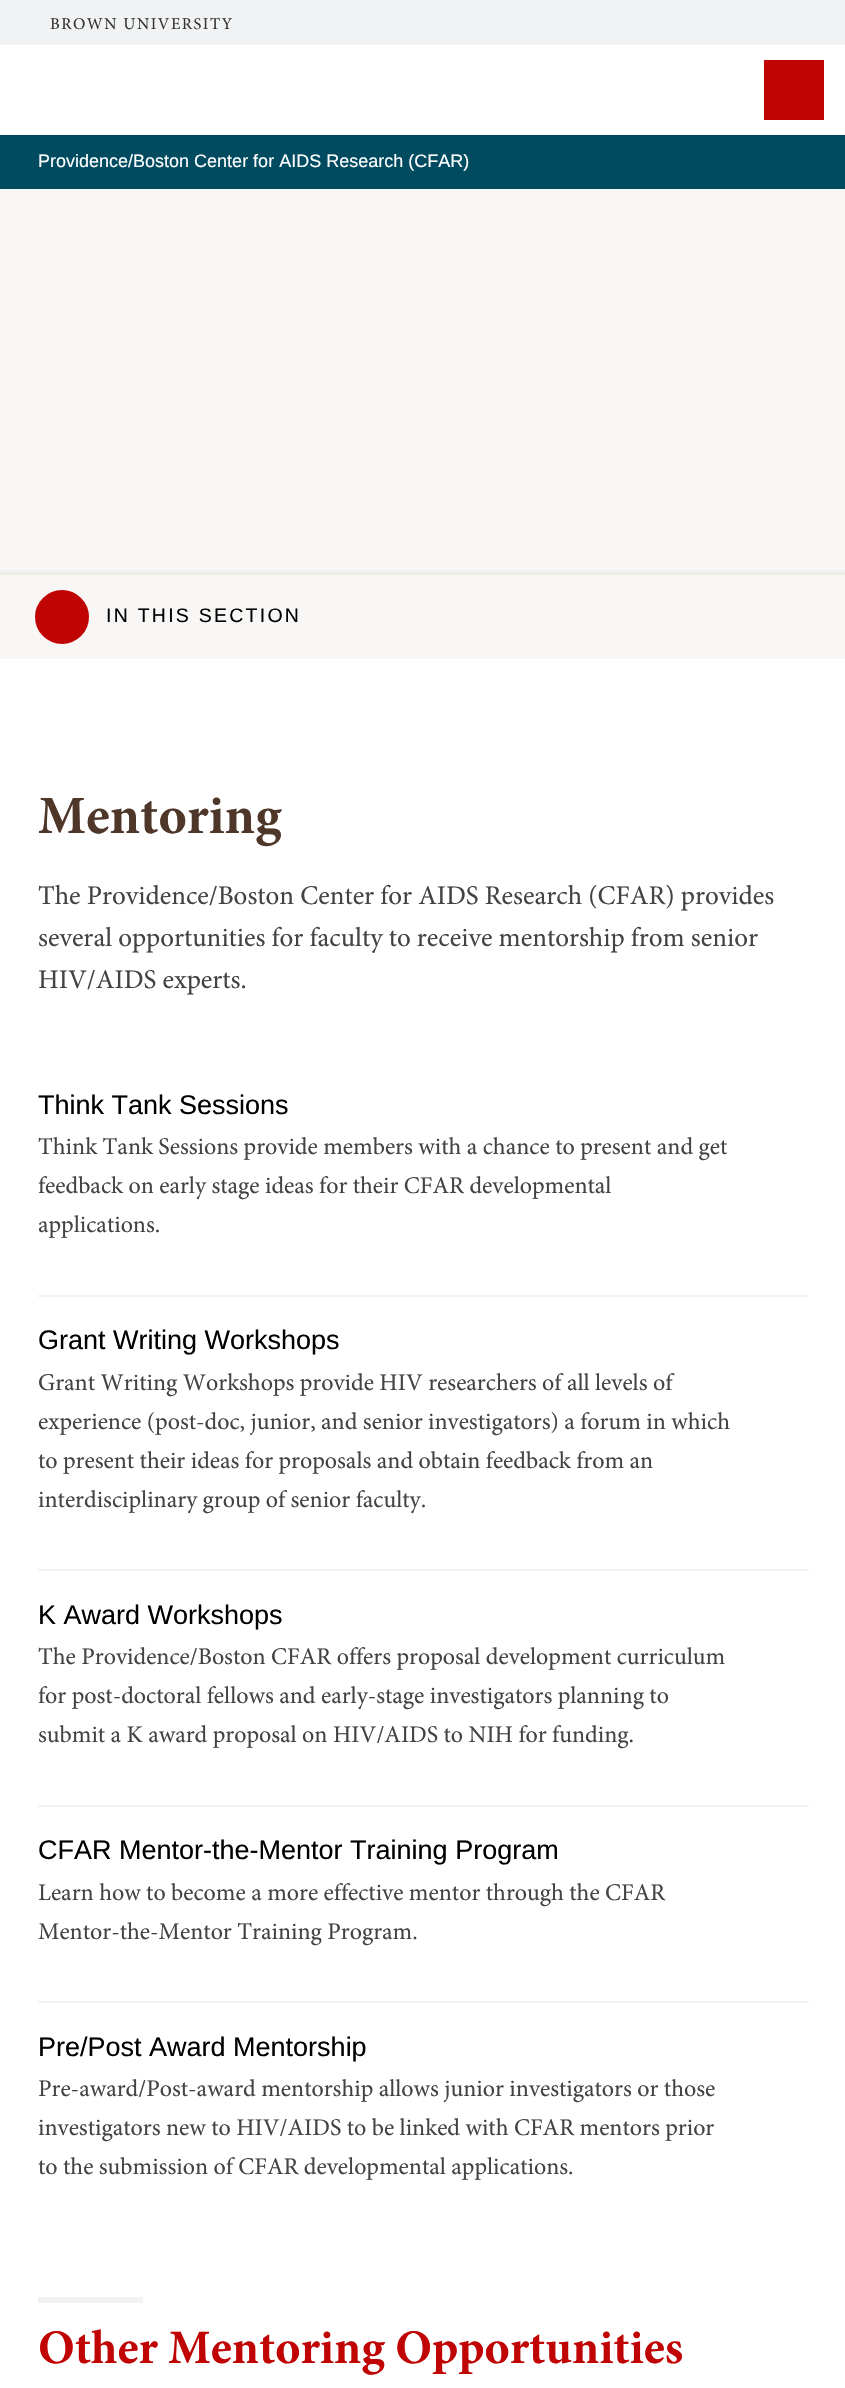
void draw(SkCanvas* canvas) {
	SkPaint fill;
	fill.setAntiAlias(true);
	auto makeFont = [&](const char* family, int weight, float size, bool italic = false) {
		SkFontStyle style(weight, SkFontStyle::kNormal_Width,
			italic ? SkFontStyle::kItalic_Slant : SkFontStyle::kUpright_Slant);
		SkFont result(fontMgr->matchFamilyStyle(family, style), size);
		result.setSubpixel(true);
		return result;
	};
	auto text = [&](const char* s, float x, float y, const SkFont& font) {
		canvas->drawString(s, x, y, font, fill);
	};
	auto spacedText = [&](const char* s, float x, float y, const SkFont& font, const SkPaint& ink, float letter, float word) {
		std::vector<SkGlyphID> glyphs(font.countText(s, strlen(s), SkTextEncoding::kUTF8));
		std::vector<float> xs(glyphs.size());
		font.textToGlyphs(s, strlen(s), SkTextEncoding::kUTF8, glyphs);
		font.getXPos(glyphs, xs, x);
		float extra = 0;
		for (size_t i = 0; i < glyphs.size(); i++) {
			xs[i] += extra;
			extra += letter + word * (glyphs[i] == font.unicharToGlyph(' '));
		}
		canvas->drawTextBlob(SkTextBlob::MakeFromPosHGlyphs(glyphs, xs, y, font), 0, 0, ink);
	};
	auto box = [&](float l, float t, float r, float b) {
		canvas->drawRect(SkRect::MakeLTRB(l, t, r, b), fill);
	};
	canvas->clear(0xFFFFFFFF);
	fill.setColor(0xFFF0F2F3);
	box(0, 0, 845, 45);
	fill.setColor(0xFFC00404);
	box(764, 60, 824, 120);
	{
		const SkColor colors[] = {0xFF00495E, 0xFF004B60};
		const float stops[] = {0, 1};
		const SkPoint ends[] = {{423, 135}, {423, 150}};
		fill.setShader(SkGradientShader::MakeLinear(ends, colors, stops, 2, SkTileMode::kClamp));
		fill.setAlpha(255);
	}
	box(0, 135, 845, 150);
	fill.setShader(nullptr);
	fill.setColor(0xFF004B60);
	box(0, 150, 845, 189);
	fill.setColor(0xFFF8F7F5);
	box(0, 189, 845, 570);
	fill.setColor(0xFFF0F2F3);
	box(0, 570, 845, 572);
	fill.setColor(0xFFEFECE5);
	box(0, 572, 845, 575);
	fill.setColor(0xFFF8F7F5);
	box(0, 575, 845, 659);
	fill.setColor(0xFFC00404);
	canvas->drawCircle(62, 617, 26, fill);
	fill.setStyle(SkPaint::kStroke_Style);
	fill.setStrokeWidth(2);
	canvas->drawCircle(62, 617, 26, fill);
	fill.setStyle(SkPaint::kFill_Style);
	fill.setColor(0xFFF0F2F3);
	box(38, 1295, 809, 1297);
	box(38, 1569, 809, 1571);
	box(38, 1805, 809, 1807);
	box(38, 2001, 809, 2003);
	box(38, 2297, 143, 2303);
	auto font1 = makeFont("Minion", 400, 16.5f);
	fill.setColor(0xFF333333);
	spacedText("BROWN UNIVERSITY", 50, 29, font1, fill, 1.5f, 0);
	auto font2 = makeFont("Liberation Sans", 400, 18);
	fill.setColor(0xFFFFFFFF);
	text("Providence/Boston Center for AIDS Research (CFAR)", 38, 167, font2);
	auto font3 = makeFont("Liberation Sans", 400, 19.5f);
	fill.setColor(0xFF000000);
	spacedText("IN THIS SECTION", 106, 622, font3, fill, 2.25f, 0);
	auto font4 = makeFont("Minion", 700, 54);
	fill.setColor(0xFF4E3629);
	text("Mentoring", 38, 833, font4);
	auto font5 = makeFont("Minion", 400, 27);
	fill.setColor(0xFF434343);
	text("The Providence/Boston Center for AIDS Research (CFAR) provides", 38, 904, font5);
	text("several opportunities for faculty to receive mentorship from senior", 38, 946, font5);
	text("HIV/AIDS experts.", 38, 988, font5);
	auto font6 = makeFont("Liberation Sans", 400, 27);
	fill.setColor(0xFF000000);
	text("Think Tank Sessions", 38, 1114, font6);
	auto font7 = makeFont("Minion", 400, 24);
	fill.setColor(0xFF434343);
	text("Think Tank Sessions provide members with a chance to present and get", 38, 1154, font7);
	text("feedback on early stage ideas for their CFAR developmental", 38, 1193, font7);
	text("applications.", 38, 1232, font7);
	fill.setColor(0xFF000000);
	text("Grant Writing Workshops", 38, 1349, font6);
	fill.setColor(0xFF434343);
	text("Grant Writing Workshops provide HIV researchers of all levels of", 38, 1390, font7);
	text("experience (post-doc, junior, and senior investigators) a forum in which", 38, 1429, font7);
	text("to present their ideas for proposals and obtain feedback from an", 38, 1468, font7);
	text("interdisciplinary group of senior faculty.", 38, 1507, font7);
	fill.setColor(0xFF000000);
	text("K Award Workshops", 38, 1624, font6);
	fill.setColor(0xFF434343);
	text("The Providence/Boston CFAR offers proposal development curriculum", 38, 1664, font7);
	text("for post-doctoral fellows and early-stage investigators planning to", 38, 1703, font7);
	text("submit a K award proposal on HIV/AIDS to NIH for funding.", 38, 1742, font7);
	fill.setColor(0xFF000000);
	text("CFAR Mentor-the-Mentor Training Program", 38, 1859, font6);
	fill.setColor(0xFF434343);
	text("Learn how to become a more effective mentor through the CFAR", 38, 1900, font7);
	text("Mentor-the-Mentor Training Program.", 38, 1939, font7);
	fill.setColor(0xFF000000);
	text("Pre/Post Award Mentorship", 38, 2056, font6);
	fill.setColor(0xFF434343);
	text("Pre-award/Post-award mentorship allows junior investigators or those", 38, 2096, font7);
	text("investigators new to HIV/AIDS to be linked with CFAR mentors prior", 38, 2135, font7);
	text("to the submission of CFAR developmental applications.", 38, 2174, font7);
	auto font8 = makeFont("Minion", 700, 48);
	fill.setColor(0xFFC00404);
	text("Other Mentoring Opportunities", 38, 2363, font8);
}
